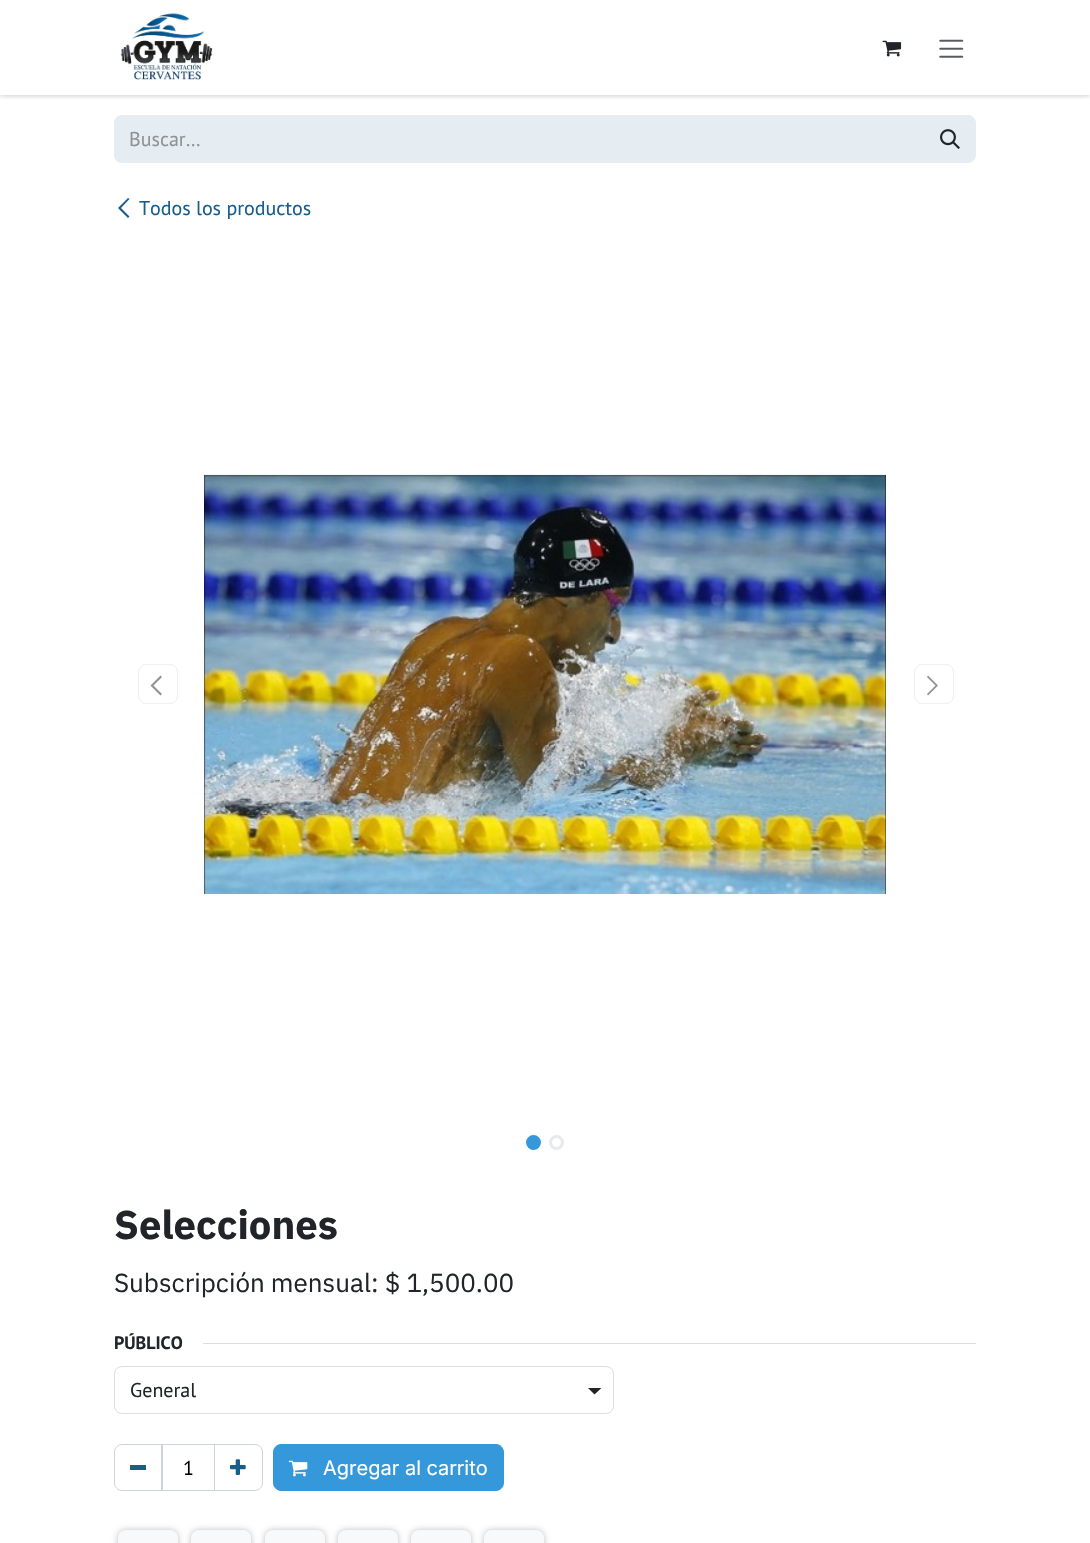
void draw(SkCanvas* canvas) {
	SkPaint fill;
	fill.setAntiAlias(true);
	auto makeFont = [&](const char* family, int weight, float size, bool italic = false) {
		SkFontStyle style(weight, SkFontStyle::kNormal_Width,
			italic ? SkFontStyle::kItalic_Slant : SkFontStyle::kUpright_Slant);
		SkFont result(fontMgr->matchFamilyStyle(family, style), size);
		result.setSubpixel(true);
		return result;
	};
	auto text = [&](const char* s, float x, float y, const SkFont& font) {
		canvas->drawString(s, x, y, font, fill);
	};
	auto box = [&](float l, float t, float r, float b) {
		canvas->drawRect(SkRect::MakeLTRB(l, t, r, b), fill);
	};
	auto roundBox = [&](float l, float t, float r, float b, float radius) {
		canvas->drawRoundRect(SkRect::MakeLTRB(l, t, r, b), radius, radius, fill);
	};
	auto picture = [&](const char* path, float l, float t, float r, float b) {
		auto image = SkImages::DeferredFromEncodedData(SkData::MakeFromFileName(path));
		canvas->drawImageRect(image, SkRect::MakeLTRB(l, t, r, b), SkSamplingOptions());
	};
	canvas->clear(0xFFFFFFFF);
	canvas->save();
	canvas->clipRect(SkRect::MakeLTRB(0, 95, 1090, 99));
	fill.setColor(0x40000000);
	fill.setMaskFilter(SkMaskFilter::MakeBlur(kNormal_SkBlurStyle, 3));
	canvas->drawRect(SkRect::MakeLTRB(0, 0, 1090, 95), fill);
	fill.setMaskFilter(nullptr);
	canvas->restore();
	picture("image0.png", 120, 13, 213, 80);
	picture("image1.png", 882, 40, 902, 57);
	picture("image2.png", 939, 39, 964, 58);
	fill.setColor(0xFFE5EDF2);
	canvas->drawPath(SkPathBuilder().moveTo(122, 115).lineTo(925, 115).lineTo(925, 163).lineTo(122, 163).cubicTo(117.5f, 163, 114, 159.5f, 114, 155).lineTo(114, 123).cubicTo(114, 118.5f, 117.5f, 115, 122, 115).close().detach(), fill);
	canvas->drawPath(SkPathBuilder().moveTo(924.5f, 115.5f).lineTo(968, 115.5f).cubicTo(972, 115.5f, 975.5f, 119, 975.5f, 123).lineTo(975.5f, 155).cubicTo(975.5f, 159, 972, 162.5f, 968, 162.5f).lineTo(924.5f, 162.5f).close().detach(), fill);
	fill.setStyle(SkPaint::kStroke_Style);
	fill.setStrokeWidth(1);
	canvas->drawPath(SkPathBuilder().moveTo(924.5f, 115.5f).lineTo(968, 115.5f).cubicTo(972, 115.5f, 975.5f, 119, 975.5f, 123).lineTo(975.5f, 155).cubicTo(975.5f, 159, 972, 162.5f, 968, 162.5f).lineTo(924.5f, 162.5f).close().detach(), fill);
	picture("image3.png", 940, 129, 960, 149);
	fill.setStyle(SkPaint::kFill_Style);
	fill.setColor(0xFF195D8B);
	canvas->drawPath(SkPathBuilder().moveTo(118, 208).lineTo(128, 198).lineTo(129.5f, 199).lineTo(121, 208).lineTo(129.5f, 216.5f).lineTo(128, 218).close().detach(), fill);
	fill.setStyle(SkPaint::kStroke_Style);
	fill.setColor(0xFFEEEFEF);
	canvas->drawRoundRect(SkRect::MakeLTRB(138.5f, 664.5f, 177.5f, 703.5f), 7.5f, 7.5f, fill);
	fill.setStyle(SkPaint::kFill_Style);
	fill.setColor(0xFF909294);
	canvas->drawPath(SkPathBuilder().moveTo(150.5f, 685.5f).lineTo(160.5f, 675.5f).lineTo(162, 677).lineTo(153.5f, 685.5f).lineTo(162, 694).lineTo(160.5f, 695.5f).close().detach(), fill);
	picture("image4.png", 204, 474, 886, 894);
	fill.setStyle(SkPaint::kStroke_Style);
	fill.setColor(0xFFEEEFEF);
	canvas->drawRoundRect(SkRect::MakeLTRB(914.5f, 664.5f, 953.5f, 703.5f), 7.5f, 7.5f, fill);
	fill.setStyle(SkPaint::kFill_Style);
	fill.setColor(0xFF909294);
	canvas->drawPath(SkPathBuilder().moveTo(938, 685.5f).lineTo(928, 695.5f).lineTo(927, 694).lineTo(935.5f, 685.5f).lineTo(927, 677).lineTo(928, 675.5f).close().detach(), fill);
	fill.setColor(0xFF3498DB);
	canvas->drawCircle(533.5f, 1142.5f, 6, fill);
	fill.setStyle(SkPaint::kStroke_Style);
	fill.setStrokeWidth(3);
	canvas->drawCircle(533.5f, 1142.5f, 6, fill);
	fill.setColor(0xFFE7EAED);
	canvas->drawCircle(556.5f, 1142.5f, 6, fill);
	fill.setStyle(SkPaint::kFill_Style);
	fill.setColor(0xFFDEDEDF);
	box(203, 1343, 976, 1344);
	canvas->save();
	canvas->clipRect(SkRect::MakeLTRB(588, 1388, 613, 1401));
	fill.setColor(0xFF212529);
	canvas->drawPath(SkPathBuilder().moveTo(587.5f, 1387.5f).lineTo(602, 1387.5f).lineTo(594.5f, 1394.5f).close().detach(), fill);
	canvas->restore();
	fill.setStyle(SkPaint::kStroke_Style);
	fill.setStrokeWidth(1);
	fill.setColor(0xFFDEDEDF);
	canvas->drawRoundRect(SkRect::MakeLTRB(114.5f, 1366.5f, 613.5f, 1413.5f), 7.5f, 7.5f, fill);
	fill.setColor(0xFFCED4DA);
	canvas->drawRect(SkRect::MakeLTRB(161.5f, 1444.5f, 214.5f, 1490.5f), fill);
	canvas->drawPath(SkPathBuilder().moveTo(122, 1444.5f).lineTo(162.5f, 1444.5f).lineTo(162.5f, 1490.5f).lineTo(122, 1490.5f).cubicTo(118, 1490.5f, 114.5f, 1487, 114.5f, 1483).lineTo(114.5f, 1452).cubicTo(114.5f, 1448, 118, 1444.5f, 122, 1444.5f).close().detach(), fill);
	fill.setStyle(SkPaint::kFill_Style);
	fill.setColor(0xFF195D8B);
	box(130, 1465, 146, 1470);
	fill.setStyle(SkPaint::kStroke_Style);
	fill.setColor(0xFFCED4DA);
	canvas->drawPath(SkPathBuilder().moveTo(214.5f, 1444.5f).lineTo(255, 1444.5f).cubicTo(259, 1444.5f, 262.5f, 1448, 262.5f, 1452).lineTo(262.5f, 1483).cubicTo(262.5f, 1487, 259, 1490.5f, 255, 1490.5f).lineTo(214.5f, 1490.5f).close().detach(), fill);
	picture("image5.png", 230, 1459, 246, 1475);
	fill.setStyle(SkPaint::kFill_Style);
	fill.setColor(0xFF3498DB);
	canvas->drawRoundRect(SkRect::MakeLTRB(273.5f, 1444.5f, 503.5f, 1490.5f), 7.5f, 7.5f, fill);
	fill.setStyle(SkPaint::kStroke_Style);
	canvas->drawRoundRect(SkRect::MakeLTRB(273.5f, 1444.5f, 503.5f, 1490.5f), 7.5f, 7.5f, fill);
	picture("image6.png", 288, 1460, 308, 1477);
	fill.setStyle(SkPaint::kFill_Style);
	fill.setColor(0x40000000);
	fill.setMaskFilter(SkMaskFilter::MakeBlur(kNormal_SkBlurStyle, 3));
	canvas->drawRoundRect(SkRect::MakeLTRB(118, 1530, 178, 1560), 8, 8, fill);
	fill.setMaskFilter(nullptr);
	fill.setColor(0xFFF8F9FA);
	roundBox(118, 1530, 178, 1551, 8);
	fill.setColor(0x40000000);
	fill.setMaskFilter(SkMaskFilter::MakeBlur(kNormal_SkBlurStyle, 3));
	canvas->drawRoundRect(SkRect::MakeLTRB(191, 1530, 251, 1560), 8, 8, fill);
	fill.setMaskFilter(nullptr);
	fill.setColor(0xFFF8F9FA);
	roundBox(191, 1530, 251, 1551, 8);
	fill.setColor(0x40000000);
	fill.setMaskFilter(SkMaskFilter::MakeBlur(kNormal_SkBlurStyle, 3));
	canvas->drawRoundRect(SkRect::MakeLTRB(265, 1530, 325, 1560), 8, 8, fill);
	fill.setMaskFilter(nullptr);
	fill.setColor(0xFFF8F9FA);
	roundBox(265, 1530, 325, 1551, 8);
	fill.setColor(0x40000000);
	fill.setMaskFilter(SkMaskFilter::MakeBlur(kNormal_SkBlurStyle, 3));
	canvas->drawRoundRect(SkRect::MakeLTRB(338, 1530, 398, 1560), 8, 8, fill);
	fill.setMaskFilter(nullptr);
	fill.setColor(0xFFF8F9FA);
	roundBox(338, 1530, 398, 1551, 8);
	fill.setColor(0x40000000);
	fill.setMaskFilter(SkMaskFilter::MakeBlur(kNormal_SkBlurStyle, 3));
	canvas->drawRoundRect(SkRect::MakeLTRB(411, 1530, 471, 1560), 8, 8, fill);
	fill.setMaskFilter(nullptr);
	fill.setColor(0xFFF8F9FA);
	roundBox(411, 1530, 471, 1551, 8);
	fill.setColor(0x40000000);
	fill.setMaskFilter(SkMaskFilter::MakeBlur(kNormal_SkBlurStyle, 3));
	canvas->drawRoundRect(SkRect::MakeLTRB(484, 1530, 544, 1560), 8, 8, fill);
	fill.setMaskFilter(nullptr);
	fill.setColor(0xFFF8F9FA);
	roundBox(484, 1530, 544, 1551, 8);
	auto font1 = makeFont("PT Sans", 400, 20);
	fill.setColor(0xFF909294);
	text("Buscar…", 129, 146, font1);
	fill.setColor(0xFF195D8B);
	text("Todos los productos", 139, 215, font1);
	auto font2 = makeFont("IBM Plex Sans", 700, 40);
	fill.setColor(0xFF212529);
	text("Selecciones", 114, 1239, font2);
	auto font3 = makeFont("IBM Plex Sans", 400, 26);
	text("Subscripción mensual: $ 1,500.00", 114, 1292, font3);
	auto font4 = makeFont("PT Sans", 700, 18);
	text("PÚBLICO", 114, 1349, font4);
	text("General", 130, 1397, font1);
	fill.setColor(0xFF000000);
	text("1", 183, 1475, font1);
	auto font5 = makeFont("Inter", 400, 20);
	fill.setColor(0xFFFFFFFF);
	text("Agregar al carrito", 323, 1475, font5);
}
